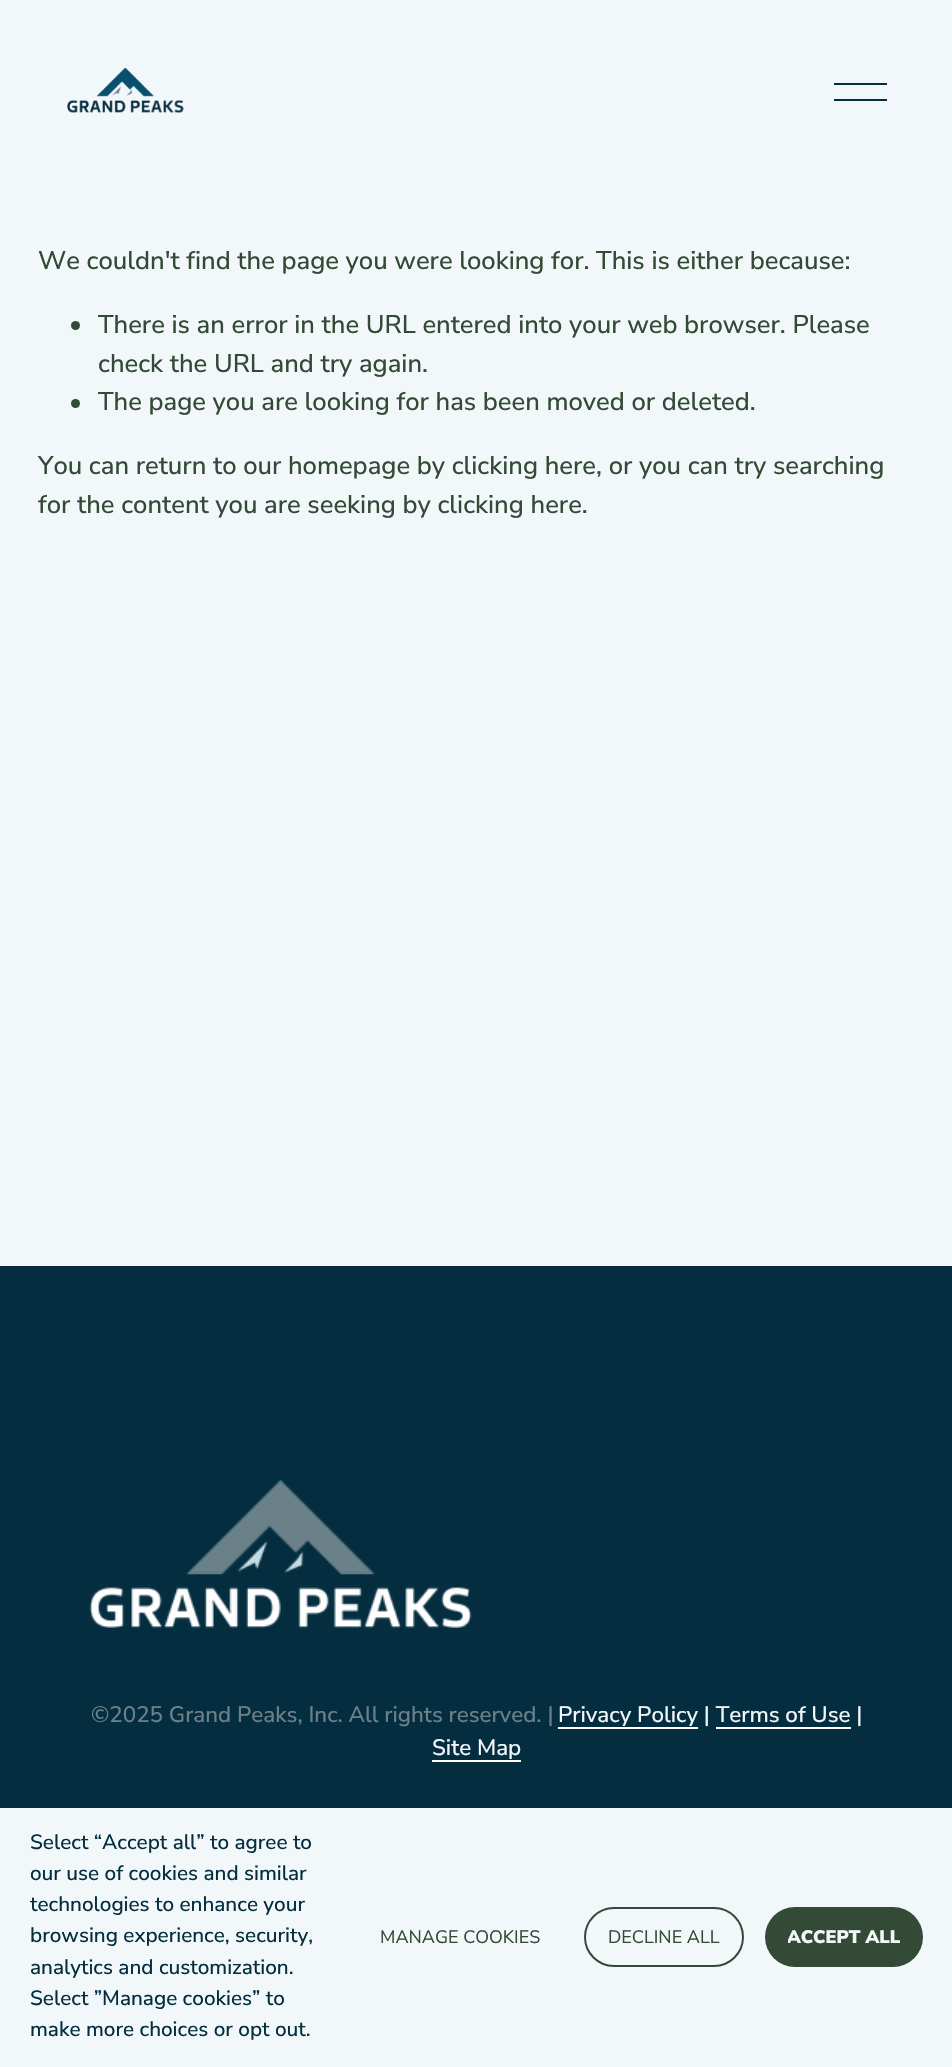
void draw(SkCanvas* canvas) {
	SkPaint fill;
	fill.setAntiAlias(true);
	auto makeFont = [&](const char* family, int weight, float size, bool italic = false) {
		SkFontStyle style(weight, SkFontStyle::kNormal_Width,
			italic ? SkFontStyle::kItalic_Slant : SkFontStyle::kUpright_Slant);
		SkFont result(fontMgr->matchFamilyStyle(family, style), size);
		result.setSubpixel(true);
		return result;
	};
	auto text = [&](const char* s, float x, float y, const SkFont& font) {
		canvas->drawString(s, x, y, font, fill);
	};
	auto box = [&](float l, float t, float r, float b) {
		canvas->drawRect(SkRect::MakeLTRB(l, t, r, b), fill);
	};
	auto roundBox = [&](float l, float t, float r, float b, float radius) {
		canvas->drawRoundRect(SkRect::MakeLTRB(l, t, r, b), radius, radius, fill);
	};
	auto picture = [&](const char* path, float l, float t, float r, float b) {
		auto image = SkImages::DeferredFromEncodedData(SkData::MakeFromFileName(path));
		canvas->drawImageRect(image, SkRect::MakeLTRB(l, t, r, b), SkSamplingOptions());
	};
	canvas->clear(0xFFF2F8FA);
	picture("image0.png", 67, 67, 184, 113);
	fill.setColor(0xFF042E40);
	box(834, 83, 887, 85);
	box(834, 99, 887, 101);
	fill.setColor(0xFF334A36);
	canvas->drawCircle(75.5f, 325.5f, 4.5f, fill);
	canvas->drawCircle(75.5f, 403.5f, 4.5f, fill);
	fill.setColor(0xFF042E40);
	box(0, 1266, 952, 1808);
	picture("image1.png", 89, 1480, 472, 1628);
	fill.setColor(0xFFFFFFFF);
	box(558, 1727, 698, 1729);
	box(716, 1727, 851, 1729);
	box(432, 1760, 521, 1762);
	fill.setStyle(SkPaint::kStroke_Style);
	fill.setStrokeWidth(2);
	fill.setColor(0xFF334A36);
	canvas->drawRoundRect(SkRect::MakeLTRB(585, 1908, 743, 1966), 29, 29, fill);
	fill.setStyle(SkPaint::kFill_Style);
	roundBox(765, 1907, 923, 1967, 30);
	auto font1 = makeFont("Nunito Sans", 500, 25.6f);
	text("We couldn't find the page you were looking for. This is either because:", 38, 269, font1);
	text("There is an error in the URL entered into your web browser. Please", 98, 333, font1);
	text("check the URL and try again.", 98, 372, font1);
	text("The page you are looking for has been moved or deleted.", 98, 410, font1);
	text("You can return to our homepage by clicking here, or you can try searching", 38, 474, font1);
	text("for the content you are seeking by clicking here.", 38, 513, font1);
	auto font2 = makeFont("Nunito Sans", 500, 22.4f);
	fill.setColor(0xFF6B818A);
	text("©2025 Grand Peaks, Inc. All rights reserved. |", 91, 1722, font2);
	fill.setColor(0xFFF2F8FA);
	text("Privacy Policy | Terms of Use |", 558, 1722, font2);
	text("Site Map", 432, 1755, font2);
	auto font3 = makeFont("Nunito Sans", 500, 20.75f);
	fill.setColor(0xFF042E40);
	text("Select “Accept all” to agree to", 30, 1849, font3);
	text("our use of cookies and similar", 30, 1880, font3);
	text("technologies to enhance your", 30, 1911, font3);
	text("browsing experience, security,", 30, 1942, font3);
	text("analytics and customization.", 30, 1974, font3);
	text("Select ”Manage cookies” to", 30, 2005, font3);
	text("make more choices or opt out.", 30, 2036, font3);
	auto font4 = makeFont("Nunito Sans", 400, 18);
	fill.setColor(0xFF334A36);
	text("MANAGE COOKIES", 380, 1943, font4);
	text("DECLINE ALL", 608, 1943, font4);
	canvas->save();
	canvas->clipRect(SkRect::MakeLTRB(788, 1925, 900, 1949));
	auto font5 = makeFont("Nunito Sans", 900, 18);
	fill.setColor(0xFFF2F8FA);
	text("ACCEPT ALL", 787, 1943, font5);
	canvas->restore();
}
